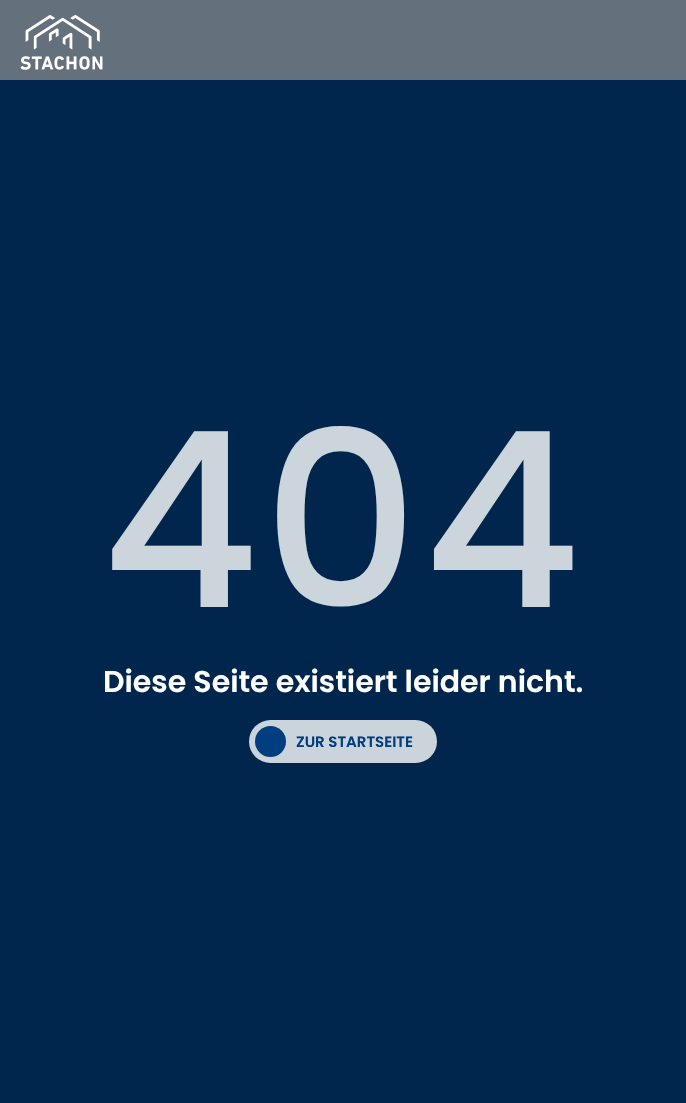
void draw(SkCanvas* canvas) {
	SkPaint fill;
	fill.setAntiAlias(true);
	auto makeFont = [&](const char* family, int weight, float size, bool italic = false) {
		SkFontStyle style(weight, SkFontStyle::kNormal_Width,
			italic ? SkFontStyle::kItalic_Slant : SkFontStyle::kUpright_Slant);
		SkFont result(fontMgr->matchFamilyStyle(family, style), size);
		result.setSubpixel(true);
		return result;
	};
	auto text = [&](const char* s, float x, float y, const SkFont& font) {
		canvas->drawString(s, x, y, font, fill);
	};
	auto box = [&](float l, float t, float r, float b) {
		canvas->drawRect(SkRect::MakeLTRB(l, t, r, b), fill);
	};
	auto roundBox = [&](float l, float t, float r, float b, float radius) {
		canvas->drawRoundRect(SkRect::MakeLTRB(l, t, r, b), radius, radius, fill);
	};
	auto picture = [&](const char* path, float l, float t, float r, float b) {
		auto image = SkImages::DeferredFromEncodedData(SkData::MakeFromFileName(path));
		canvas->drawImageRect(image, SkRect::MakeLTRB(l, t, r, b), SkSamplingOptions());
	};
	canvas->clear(0xFF00264D);
	fill.setColor(0xFF64707B);
	box(0, 0, 686, 80);
	picture("image0.png", 20, 15, 103, 70);
	picture("image1.png", 112, 426, 573, 607);
	fill.setColor(0xFFCCD4DB);
	roundBox(249, 720, 437, 763, 21.5f);
	fill.setColor(0xFF003E7F);
	canvas->drawCircle(270.5f, 741.5f, 15.5f, fill);
	auto font1 = makeFont("Poppins", 600, 30);
	fill.setColor(0xFFFFFFFF);
	text("Diese Seite existiert leider nicht.", 103, 692, font1);
	auto font2 = makeFont("Poppins", 600, 15);
	fill.setColor(0xFF003E7F);
	text("ZUR STARTSEITE", 296, 747, font2);
}
